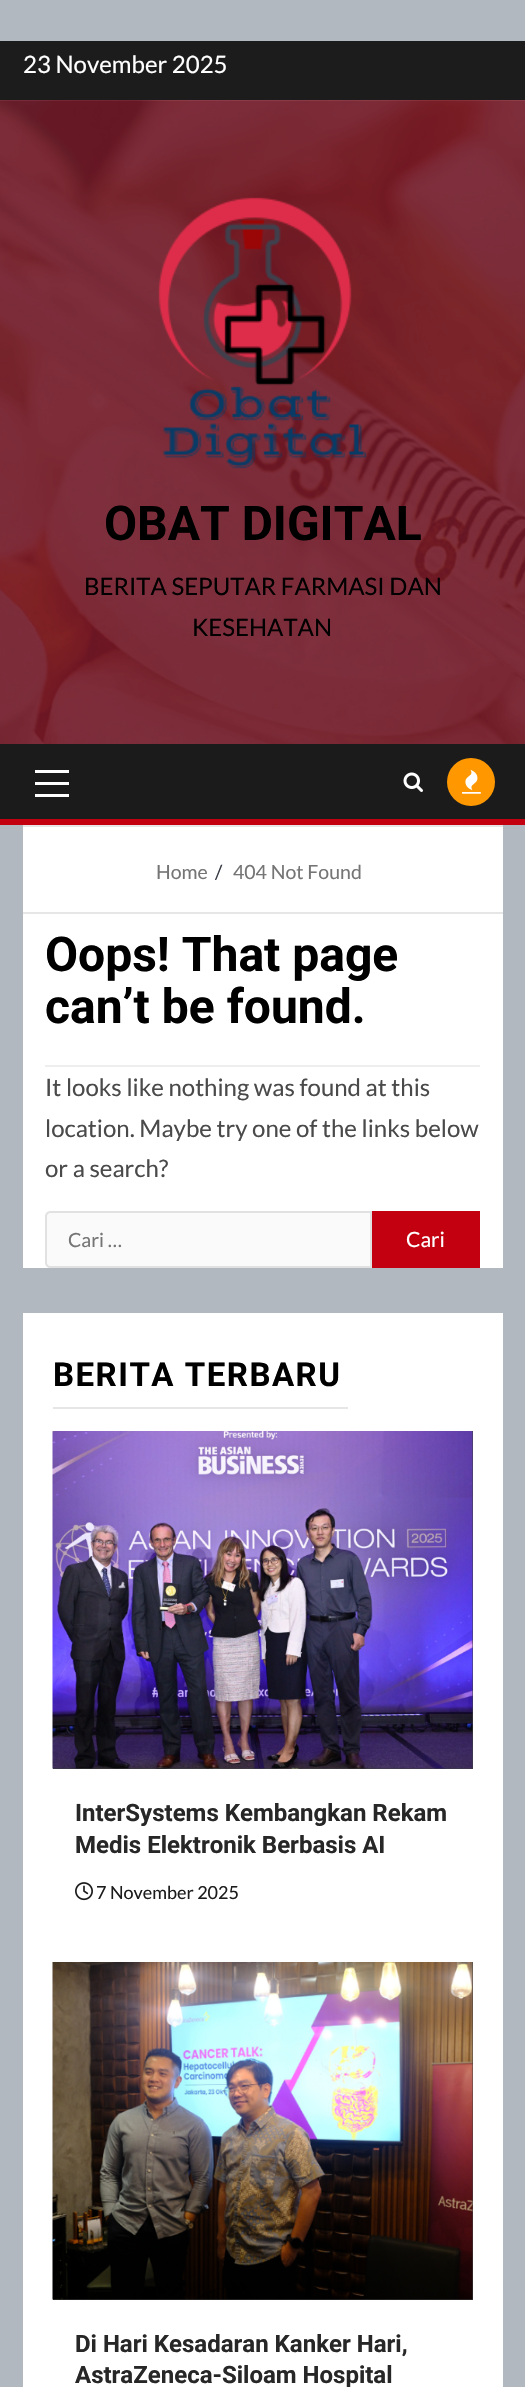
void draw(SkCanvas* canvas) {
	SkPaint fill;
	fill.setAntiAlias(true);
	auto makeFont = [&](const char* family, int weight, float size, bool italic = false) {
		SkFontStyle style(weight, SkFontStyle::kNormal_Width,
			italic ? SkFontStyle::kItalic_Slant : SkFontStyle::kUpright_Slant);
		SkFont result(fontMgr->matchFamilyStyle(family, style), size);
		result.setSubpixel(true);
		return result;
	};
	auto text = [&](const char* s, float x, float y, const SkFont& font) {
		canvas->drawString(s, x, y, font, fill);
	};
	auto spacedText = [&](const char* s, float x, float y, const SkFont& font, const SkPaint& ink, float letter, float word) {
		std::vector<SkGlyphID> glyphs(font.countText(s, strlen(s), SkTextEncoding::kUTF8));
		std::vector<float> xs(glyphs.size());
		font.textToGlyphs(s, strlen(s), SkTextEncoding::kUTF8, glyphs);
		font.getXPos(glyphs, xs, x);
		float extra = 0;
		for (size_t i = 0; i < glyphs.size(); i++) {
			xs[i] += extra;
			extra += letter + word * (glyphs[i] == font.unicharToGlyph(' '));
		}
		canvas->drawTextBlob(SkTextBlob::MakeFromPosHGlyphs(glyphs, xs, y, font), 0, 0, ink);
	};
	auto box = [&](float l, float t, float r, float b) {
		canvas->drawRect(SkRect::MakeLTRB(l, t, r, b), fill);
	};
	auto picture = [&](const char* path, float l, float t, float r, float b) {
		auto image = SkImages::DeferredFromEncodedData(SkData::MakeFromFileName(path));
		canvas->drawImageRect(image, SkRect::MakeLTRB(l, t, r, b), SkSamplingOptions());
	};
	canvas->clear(0xFFB1B8BF);
	fill.setColor(0xFF1C1C1C);
	box(0, 41, 525, 101);
	picture("image0.png", 0, 100, 525, 744);
	picture("image1.png", 158, 197, 367, 469);
	fill.setColor(0xFF1B1B1B);
	box(0, 744, 525, 819);
	fill.setColor(0xFFC30010);
	box(0, 819, 525, 825);
	fill.setColor(0xFFFFFFFF);
	box(35, 782, 69, 785);
	box(35, 770, 69, 773);
	box(35, 794, 69, 797);
	picture("image2.png", 403, 772, 423, 792);
	fill.setColor(0xFFFF9800);
	canvas->drawCircle(471, 782, 24, fill);
	picture("image3.png", 462, 769, 481, 794);
	fill.setColor(0xFFFFFFFF);
	box(23, 827, 503, 912);
	fill.setColor(0xFFE6E6E6);
	box(23, 825, 503, 827);
	box(23, 912, 503, 914);
	fill.setColor(0xFFFFFFFF);
	box(23, 914, 503, 1268);
	fill.setColor(0xFFEEEEEE);
	box(45, 1065, 480, 1067);
	fill.setColor(0xFFFAFAFA);
	canvas->drawPath(SkPathBuilder().moveTo(50, 1212).lineTo(371, 1212).lineTo(371, 1267).lineTo(50, 1267).cubicTo(48, 1267, 46, 1265, 46, 1263).lineTo(46, 1216).cubicTo(46, 1214, 48, 1212, 50, 1212).close().detach(), fill);
	fill.setStyle(SkPaint::kStroke_Style);
	fill.setStrokeWidth(2);
	fill.setColor(0xFFE1E1E1);
	canvas->drawPath(SkPathBuilder().moveTo(50, 1212).lineTo(371, 1212).lineTo(371, 1267).lineTo(50, 1267).cubicTo(48, 1267, 46, 1265, 46, 1263).lineTo(46, 1216).cubicTo(46, 1214, 48, 1212, 50, 1212).close().detach(), fill);
	fill.setStyle(SkPaint::kFill_Style);
	fill.setColor(0xFFC30010);
	box(372, 1211, 480, 1268);
	fill.setColor(0xFFFFFFFF);
	box(23, 1313, 503, 2387);
	fill.setColor(0xFFE6E6E6);
	box(53, 1407, 348, 1409);
	fill.setColor(0xFF404040);
	box(53, 1431, 473, 1769);
	picture("image4.png", 52, 1431, 473, 1769);
	picture("image5.png", 75, 1882, 93, 1901);
	box(53, 1962, 473, 2300);
	picture("image6.png", 52, 1962, 473, 2300);
	auto font1 = makeFont("Lato", 400, 24);
	fill.setColor(0xFFFFFFFF);
	text("23 November 2025", 23, 73, font1);
	auto font2 = makeFont("Roboto", 700, 48);
	fill.setColor(0xFF000000);
	text("OBAT DIGITAL", 104, 540, font2);
	text("BERITA SEPUTAR FARMASI DAN", 84, 595, font1);
	text("KESEHATAN", 192, 636, font1);
	auto font3 = makeFont("Lato", 400, 19.5f);
	fill.setColor(0xFF757575);
	text("Home", 156, 879, font3);
	fill.setColor(0xFF393E46);
	text("/", 215, 879, font3);
	fill.setColor(0xFF757575);
	text("404 Not Found", 233, 879, font3);
	fill.setColor(0xFF000000);
	text("Oops! That page", 45, 971, font2);
	text("can’t be found.", 45, 1023, font2);
	fill.setColor(0xFF4A4A4A);
	text("It looks like nothing was found at this", 45, 1096, font1);
	text("location. Maybe try one of the links below", 45, 1137, font1);
	text("or a search?", 45, 1177, font1);
	fill.setColor(0xFF757575);
	text("Cari …", 68, 1247, font3);
	auto font4 = makeFont("Lato", 400, 21);
	fill.setColor(0xFFFFFFFF);
	text("Cari", 406, 1247, font4);
	auto font5 = makeFont("Roboto", 700, 33);
	fill.setColor(0xFF000000);
	spacedText("BERITA TERBARU", 53, 1386, font5, fill, 1.5f, 0);
	auto font6 = makeFont("Roboto", 700, 24);
	fill.setColor(0xFF272727);
	text("InterSystems Kembangkan Rekam", 75, 1821, font6);
	text("Medis Elektronik Berbasis AI", 75, 1853, font6);
	auto font7 = makeFont("Lato", 400, 18);
	fill.setColor(0xFF1C1C1C);
	text("7 November 2025", 96, 1899, font7);
	fill.setColor(0xFF272727);
	text("Di Hari Kesadaran Kanker Hari,", 75, 2352, font6);
	text("AstraZeneca-Siloam Hospital", 75, 2383, font6);
}
